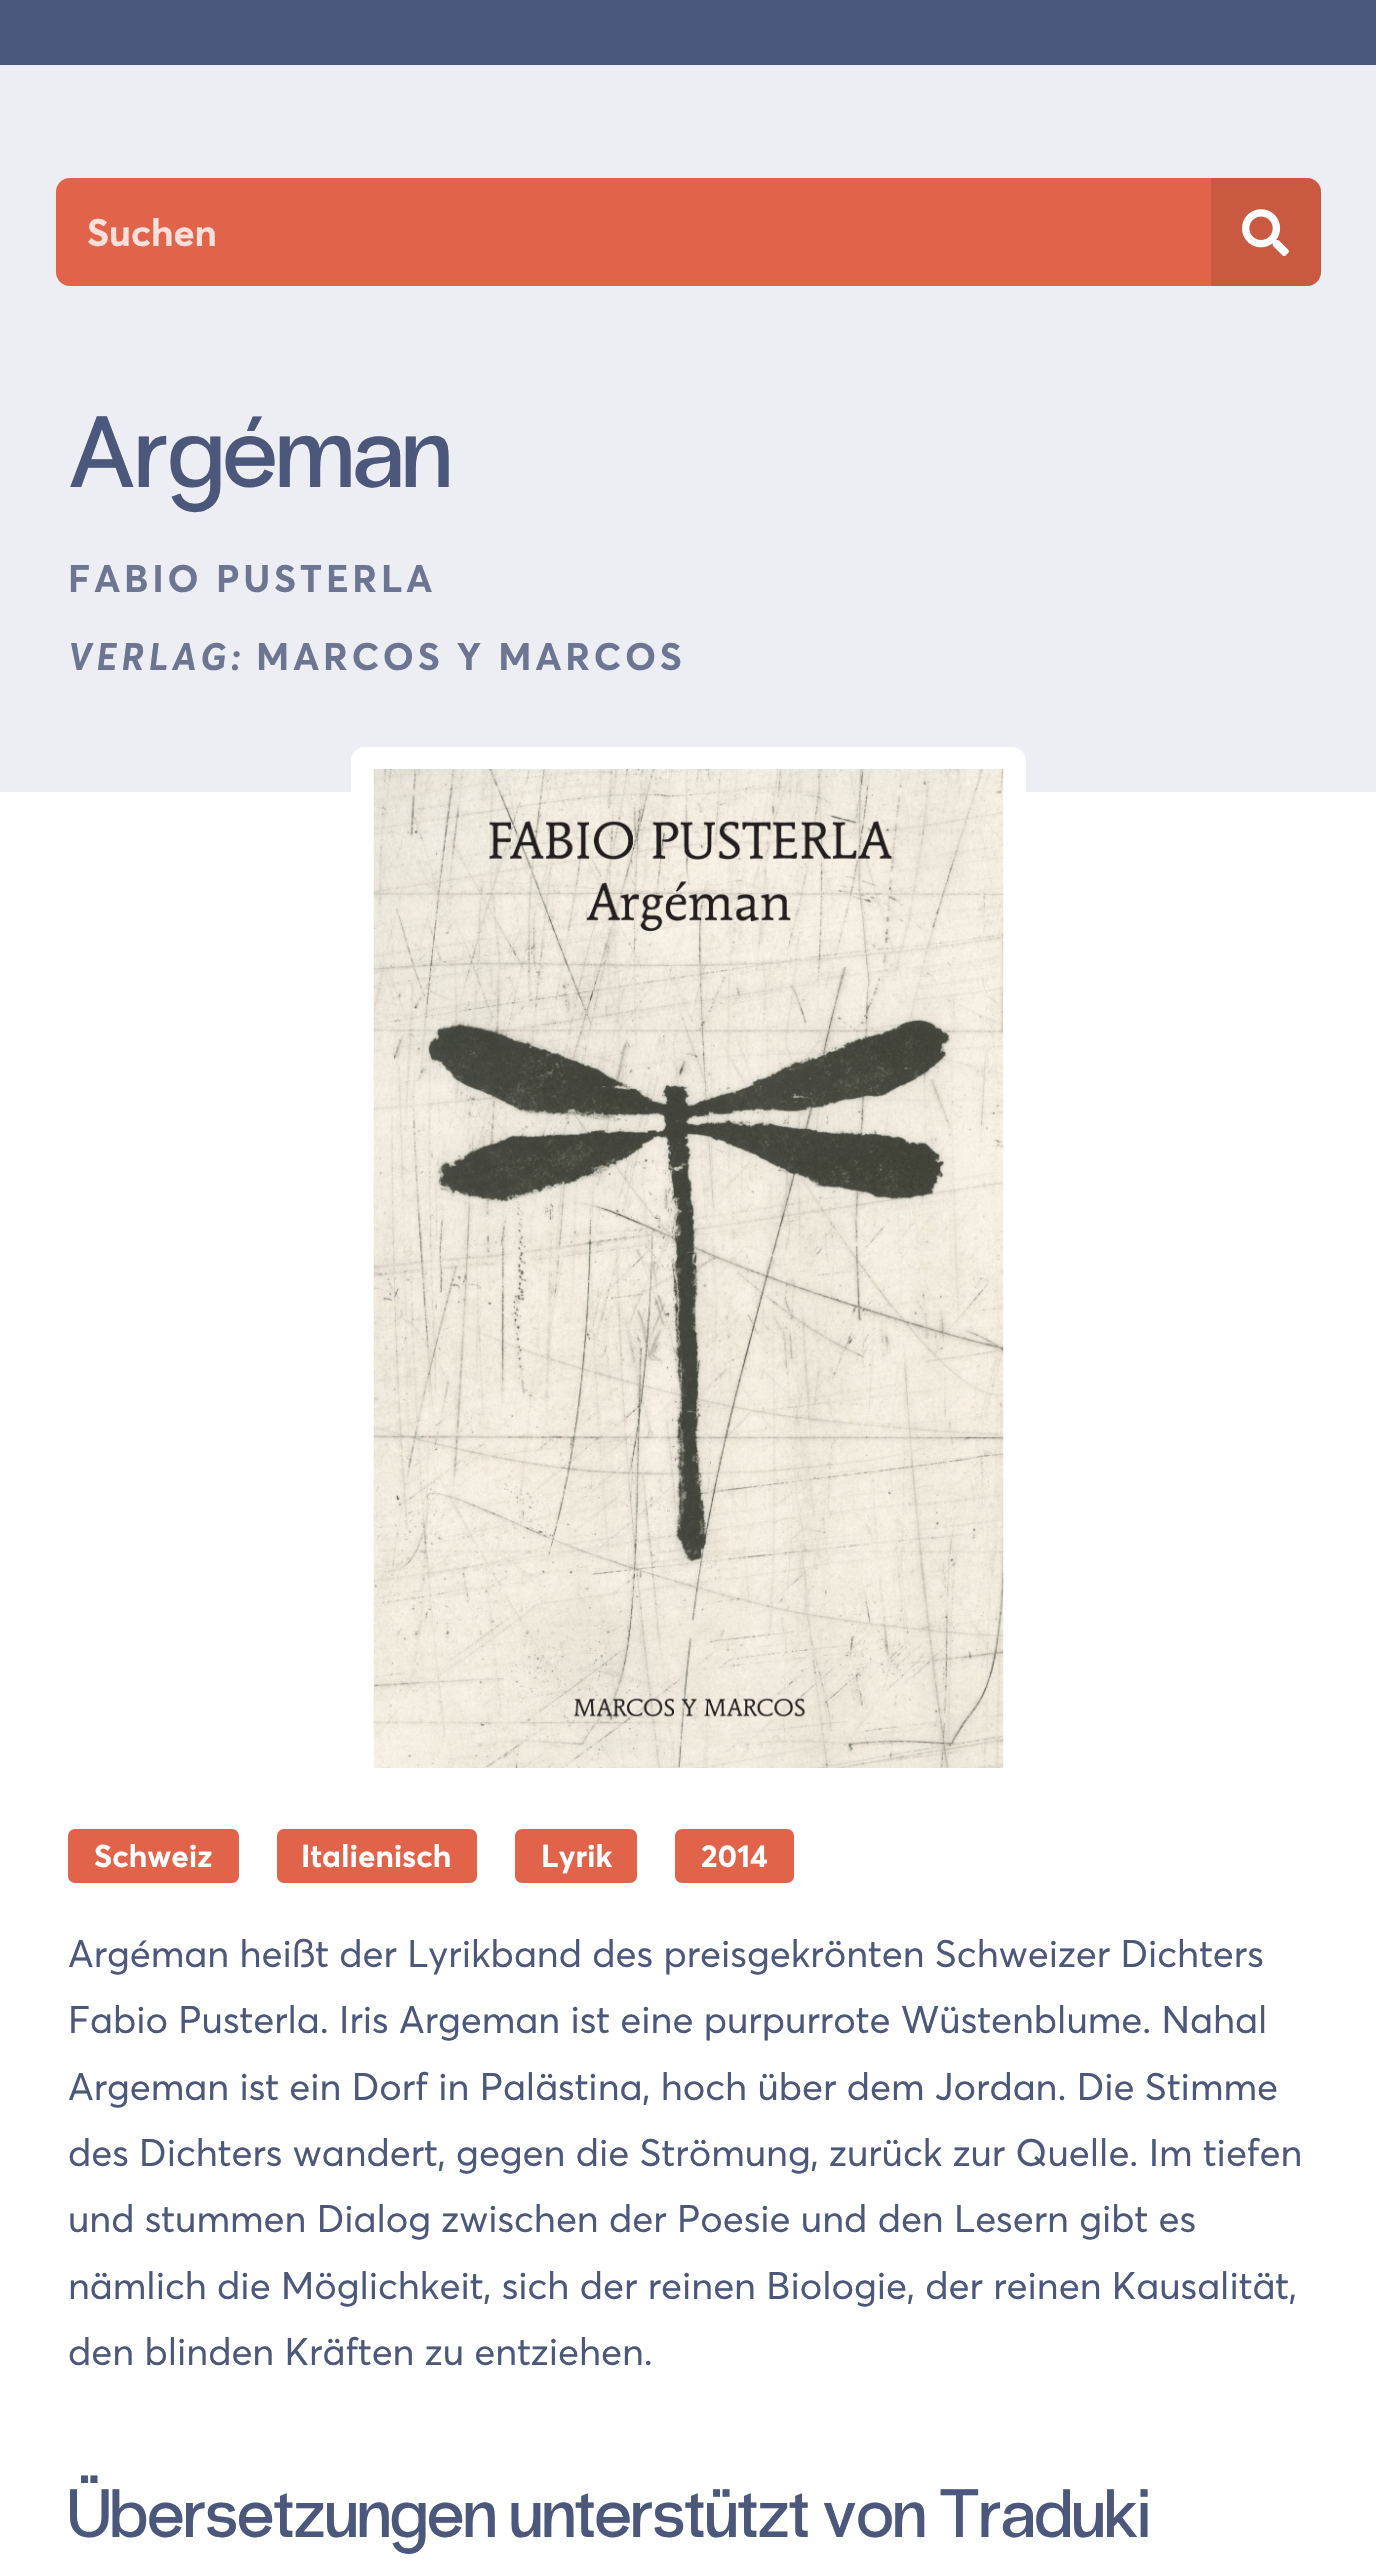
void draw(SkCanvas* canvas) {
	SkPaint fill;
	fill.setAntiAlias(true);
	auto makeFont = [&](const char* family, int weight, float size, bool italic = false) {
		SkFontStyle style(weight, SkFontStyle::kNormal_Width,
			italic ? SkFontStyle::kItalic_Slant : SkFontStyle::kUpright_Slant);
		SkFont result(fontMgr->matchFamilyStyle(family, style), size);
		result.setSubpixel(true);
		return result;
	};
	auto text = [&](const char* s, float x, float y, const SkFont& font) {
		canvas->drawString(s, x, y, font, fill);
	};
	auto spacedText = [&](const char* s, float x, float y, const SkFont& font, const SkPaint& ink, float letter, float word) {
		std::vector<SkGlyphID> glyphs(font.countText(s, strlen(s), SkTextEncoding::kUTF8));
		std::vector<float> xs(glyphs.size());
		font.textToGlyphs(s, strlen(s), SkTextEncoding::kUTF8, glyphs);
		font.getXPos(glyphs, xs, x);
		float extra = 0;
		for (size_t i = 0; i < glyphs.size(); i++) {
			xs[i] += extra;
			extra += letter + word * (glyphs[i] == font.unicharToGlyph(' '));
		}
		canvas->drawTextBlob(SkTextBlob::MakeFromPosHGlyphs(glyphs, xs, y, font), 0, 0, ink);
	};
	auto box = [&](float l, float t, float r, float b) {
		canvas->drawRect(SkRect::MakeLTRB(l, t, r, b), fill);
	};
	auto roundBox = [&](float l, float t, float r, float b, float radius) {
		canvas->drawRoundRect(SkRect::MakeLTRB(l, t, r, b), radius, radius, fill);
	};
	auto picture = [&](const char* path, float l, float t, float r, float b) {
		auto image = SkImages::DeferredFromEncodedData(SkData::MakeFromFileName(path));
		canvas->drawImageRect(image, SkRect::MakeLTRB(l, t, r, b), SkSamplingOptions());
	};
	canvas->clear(0xFFFFFFFF);
	fill.setColor(0xFF4C587B);
	box(0, 0, 1376, 65);
	fill.setColor(0xFFECEEF3);
	box(0, 65, 1376, 792);
	fill.setColor(0xFFE16349);
	roundBox(56, 178, 1321, 286, 14);
	fill.setColor(0x1A000000);
	canvas->drawPath(SkPathBuilder().moveTo(1211, 178).lineTo(1307, 178).cubicTo(1314.5f, 178, 1321, 184.5f, 1321, 192).lineTo(1321, 272).cubicTo(1321, 279.5f, 1314.5f, 286, 1307, 286).lineTo(1211, 286).close().detach(), fill);
	picture("image0.png", 1242, 209, 1289, 257);
	fill.setStyle(SkPaint::kStroke_Style);
	fill.setStrokeWidth(23);
	fill.setColor(0xFFFFFFFF);
	canvas->drawRoundRect(SkRect::MakeLTRB(362.5f, 758.5f, 1014.5f, 1779.5f), 2.5f, 2.5f, fill);
	picture("image1.png", 373, 769, 1004, 1768);
	fill.setStyle(SkPaint::kFill_Style);
	fill.setColor(0xFFE16349);
	roundBox(68, 1829, 239, 1883, 7);
	roundBox(277, 1829, 477, 1883, 7);
	roundBox(515, 1829, 637, 1883, 7);
	roundBox(675, 1829, 794, 1883, 7);
	auto font1 = makeFont("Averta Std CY", 700, 37.95f);
	fill.setColor(0xFFF9E0DB);
	text("Suchen", 87, 246, font1);
	auto font2 = makeFont("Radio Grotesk", 400, 101);
	fill.setColor(0xFF4C587B);
	text("Argéman", 68, 487, font2);
	fill.setColor(0xFF6C7693);
	spacedText("FABIO PUSTERLA", 68, 592, font1, fill, 3.75f, 0);
	auto font3 = makeFont("Averta Std CY", 700, 37.95f, true);
	spacedText("VERLAG:", 68, 670, font3, fill, 3.75f, 0);
	spacedText("MARCOS Y MARCOS", 256, 670, font1, fill, 3.75f, 0);
	auto font4 = makeFont("Averta Std CY", 700, 31.25f);
	fill.setColor(0xFFFFFFFF);
	text("Schweiz", 94, 1867, font4);
	text("Italienisch", 301, 1867, font4);
	text("Lyrik", 541, 1867, font4);
	text("2014", 701, 1867, font4);
	auto font5 = makeFont("Averta Std CY", 400, 37.95f);
	fill.setColor(0xFF4C587B);
	text("Argéman heißt der Lyrikband des preisgekrönten Schweizer Dichters", 68, 1967, font5);
	text("Fabio Pusterla. Iris Argeman ist eine purpurrote Wüstenblume. Nahal", 68, 2033, font5);
	text("Argeman ist ein Dorf in Palästina, hoch über dem Jordan. Die Stimme", 68, 2100, font5);
	text("des Dichters wandert, gegen die Strömung, zurück zur Quelle. Im tiefen", 68, 2166, font5);
	text("und stummen Dialog zwischen der Poesie und den Lesern gibt es", 68, 2232, font5);
	text("nämlich die Möglichkeit, sich der reinen Biologie, der reinen Kausalität,", 68, 2299, font5);
	text("den blinden Kräften zu entziehen.", 68, 2365, font5);
	auto font6 = makeFont("Radio Grotesk", 400, 68.25f);
	spacedText("Übersetzungen unterstützt von Traduki", 68, 2537, font6, fill, 0, -10.5f);
}
